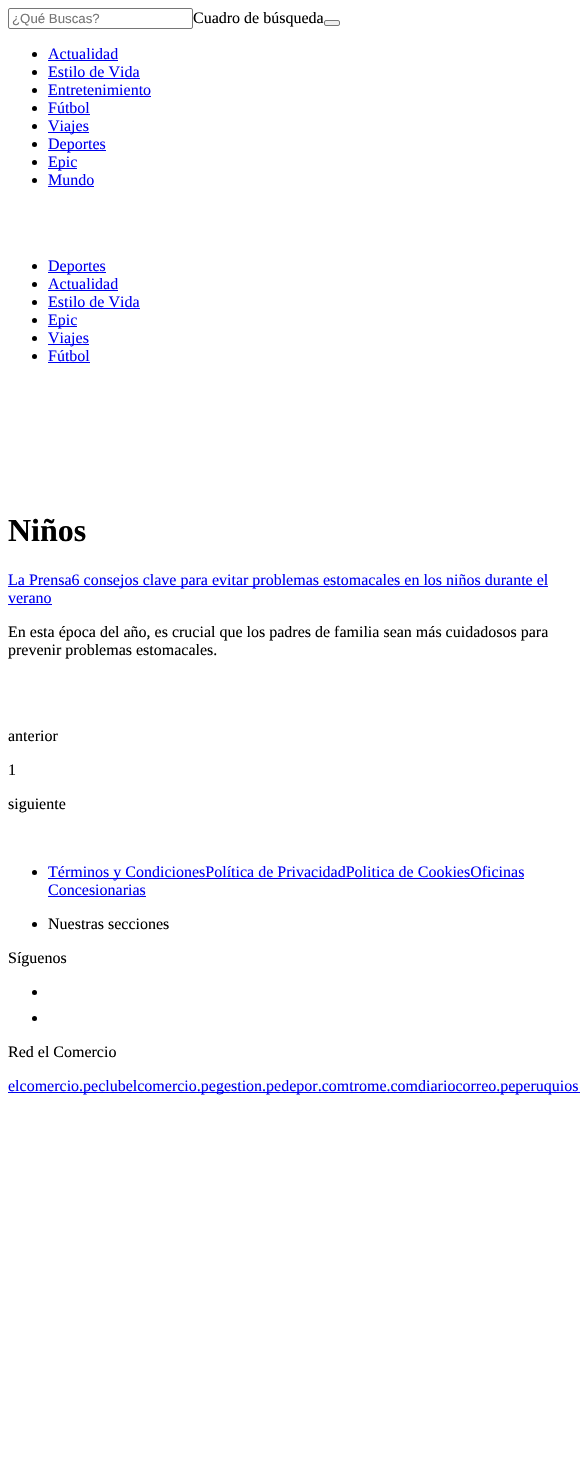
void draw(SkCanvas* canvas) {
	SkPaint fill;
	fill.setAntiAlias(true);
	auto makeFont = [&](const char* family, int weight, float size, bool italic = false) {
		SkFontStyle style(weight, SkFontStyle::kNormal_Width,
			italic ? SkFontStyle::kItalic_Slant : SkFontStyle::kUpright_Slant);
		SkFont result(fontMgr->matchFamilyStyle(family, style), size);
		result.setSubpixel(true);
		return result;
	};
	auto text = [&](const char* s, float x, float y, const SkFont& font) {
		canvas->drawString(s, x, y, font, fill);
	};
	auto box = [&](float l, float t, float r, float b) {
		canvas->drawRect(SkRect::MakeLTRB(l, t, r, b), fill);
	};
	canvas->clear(0xFFFFFFFF);
	fill.setStyle(SkPaint::kStroke_Style);
	fill.setStrokeWidth(1);
	fill.setColor(0xFF767676);
	canvas->drawRoundRect(SkRect::MakeLTRB(8.5f, 8.5f, 192.5f, 28.5f), 1.5f, 1.5f, fill);
	fill.setStyle(SkPaint::kFill_Style);
	fill.setColor(0xFFEFEFEF);
	canvas->drawRoundRect(SkRect::MakeLTRB(324.5f, 20.5f, 339.5f, 25.5f), 1.5f, 1.5f, fill);
	fill.setStyle(SkPaint::kStroke_Style);
	fill.setColor(0xFF767676);
	canvas->drawRoundRect(SkRect::MakeLTRB(324.5f, 20.5f, 339.5f, 25.5f), 1.5f, 1.5f, fill);
	fill.setStyle(SkPaint::kFill_Style);
	fill.setColor(0xFF000000);
	canvas->drawCircle(34.5f, 54.5f, 2.5f, fill);
	fill.setColor(0xFF0000EE);
	box(48, 60, 118, 61);
	fill.setColor(0xFF000000);
	canvas->drawCircle(34.5f, 72.5f, 2.5f, fill);
	fill.setColor(0xFF0000EE);
	box(48, 78, 140, 79);
	fill.setColor(0xFF000000);
	canvas->drawCircle(34.5f, 90.5f, 2.5f, fill);
	fill.setColor(0xFF0000EE);
	box(48, 96, 151, 97);
	fill.setColor(0xFF000000);
	canvas->drawCircle(34.5f, 108.5f, 2.5f, fill);
	fill.setColor(0xFF0000EE);
	box(48, 114, 90, 115);
	fill.setColor(0xFF000000);
	canvas->drawCircle(34.5f, 126.5f, 2.5f, fill);
	fill.setColor(0xFF0000EE);
	box(48, 132, 89, 133);
	fill.setColor(0xFF000000);
	canvas->drawCircle(34.5f, 144.5f, 2.5f, fill);
	fill.setColor(0xFF0000EE);
	box(48, 150, 106, 151);
	fill.setColor(0xFF000000);
	canvas->drawCircle(34.5f, 162.5f, 2.5f, fill);
	fill.setColor(0xFF0000EE);
	box(48, 168, 77, 169);
	fill.setColor(0xFF000000);
	canvas->drawCircle(34.5f, 180.5f, 2.5f, fill);
	fill.setColor(0xFF0000EE);
	box(48, 186, 94, 187);
	fill.setColor(0xFF000000);
	canvas->drawCircle(34.5f, 266.5f, 2.5f, fill);
	fill.setColor(0xFF0000EE);
	box(48, 272, 106, 273);
	fill.setColor(0xFF000000);
	canvas->drawCircle(34.5f, 284.5f, 2.5f, fill);
	fill.setColor(0xFF0000EE);
	box(48, 290, 118, 291);
	fill.setColor(0xFF000000);
	canvas->drawCircle(34.5f, 302.5f, 2.5f, fill);
	fill.setColor(0xFF0000EE);
	box(48, 308, 140, 309);
	fill.setColor(0xFF000000);
	canvas->drawCircle(34.5f, 320.5f, 2.5f, fill);
	fill.setColor(0xFF0000EE);
	box(48, 326, 77, 327);
	fill.setColor(0xFF000000);
	canvas->drawCircle(34.5f, 338.5f, 2.5f, fill);
	fill.setColor(0xFF0000EE);
	box(48, 344, 89, 345);
	fill.setColor(0xFF000000);
	canvas->drawCircle(34.5f, 356.5f, 2.5f, fill);
	fill.setColor(0xFF0000EE);
	box(48, 362, 90, 363);
	box(8, 586, 548, 587);
	box(8, 604, 52, 605);
	fill.setColor(0xFF000000);
	canvas->drawCircle(34.5f, 872.5f, 2.5f, fill);
	fill.setColor(0xFF0000EE);
	box(48, 878, 524, 879);
	box(48, 896, 146, 897);
	fill.setColor(0xFF000000);
	canvas->drawCircle(34.5f, 924.5f, 2.5f, fill);
	canvas->drawCircle(34.5f, 992.5f, 2.5f, fill);
	canvas->drawCircle(34.5f, 1018.5f, 2.5f, fill);
	fill.setColor(0xFF0000EE);
	box(8, 1092, 580, 1093);
	auto font1 = makeFont("Liberation Sans", 400, 13.25f);
	fill.setColor(0xFF757575);
	text("¿Qué Buscas?", 12, 23, font1);
	auto font2 = makeFont("Liberation Serif", 400, 16);
	fill.setColor(0xFF000000);
	text("Cuadro de búsqueda", 193, 23, font2);
	fill.setColor(0xFF0000EE);
	text("Actualidad", 48, 59, font2);
	text("Estilo de Vida", 48, 77, font2);
	text("Entretenimiento", 48, 95, font2);
	text("Fútbol", 48, 113, font2);
	text("Viajes", 48, 131, font2);
	text("Deportes", 48, 149, font2);
	text("Epic", 48, 167, font2);
	text("Mundo", 48, 185, font2);
	text("Deportes", 48, 271, font2);
	text("Actualidad", 48, 289, font2);
	text("Estilo de Vida", 48, 307, font2);
	text("Epic", 48, 325, font2);
	text("Viajes", 48, 343, font2);
	text("Fútbol", 48, 361, font2);
	auto font3 = makeFont("Liberation Serif", 700, 32);
	fill.setColor(0xFF000000);
	text("Niños", 8, 541, font3);
	fill.setColor(0xFF0000EE);
	text("La Prensa6 consejos clave para evitar problemas estomacales en los niños durante el", 8, 585, font2);
	text("verano", 8, 603, font2);
	fill.setColor(0xFF000000);
	text("En esta época del año, es crucial que los padres de familia sean más cuidadosos para", 8, 637, font2);
	text("prevenir problemas estomacales.", 8, 655, font2);
	text("anterior", 8, 741, font2);
	text("1", 8, 775, font2);
	text("siguiente", 8, 809, font2);
	fill.setColor(0xFF0000EE);
	text("Términos y CondicionesPolítica de PrivacidadPolitica de CookiesOficinas", 48, 877, font2);
	text("Concesionarias", 48, 895, font2);
	fill.setColor(0xFF000000);
	text("Nuestras secciones", 48, 929, font2);
	text("Síguenos", 8, 963, font2);
	text("Red el Comercio", 8, 1057, font2);
	fill.setColor(0xFF0000EE);
	text("elcomercio.peclubelcomercio.pegestion.pedepor.comtrome.comdiariocorreo.peperuquios", 8, 1091, font2);
}
